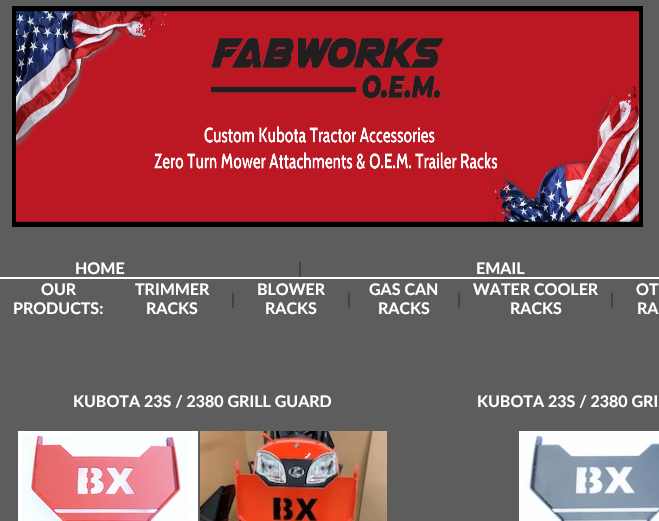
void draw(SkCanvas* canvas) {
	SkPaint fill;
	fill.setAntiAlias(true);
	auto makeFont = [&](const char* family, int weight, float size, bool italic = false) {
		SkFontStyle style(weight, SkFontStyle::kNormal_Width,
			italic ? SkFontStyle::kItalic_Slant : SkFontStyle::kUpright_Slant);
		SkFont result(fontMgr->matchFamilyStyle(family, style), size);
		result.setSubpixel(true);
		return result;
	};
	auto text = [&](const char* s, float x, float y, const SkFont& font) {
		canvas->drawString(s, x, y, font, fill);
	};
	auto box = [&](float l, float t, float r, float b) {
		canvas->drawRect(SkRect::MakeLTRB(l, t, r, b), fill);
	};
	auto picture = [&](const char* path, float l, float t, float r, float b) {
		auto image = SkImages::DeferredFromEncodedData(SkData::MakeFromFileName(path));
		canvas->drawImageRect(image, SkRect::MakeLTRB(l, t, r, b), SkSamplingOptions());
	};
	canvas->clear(0xFF5D5D5D);
	picture("image0.png", 12, 6, 643, 227);
	fill.setColor(0xFFFFFFFF);
	box(0, 277, 659, 279);
	picture("image1.png", 18, 431, 198, 521);
	picture("image2.png", 200, 431, 387, 521);
	picture("image3.png", 519, 431, 659, 521);
	auto font1 = makeFont("Lato", 700, 16);
	text("HOME", 75, 274, font1);
	auto font2 = makeFont("Lato", 400, 16);
	fill.setColor(0xFF333333);
	text("|", 298, 274, font2);
	fill.setColor(0xFFFFFFFF);
	text("EMAIL", 476, 274, font1);
	text("OUR", 41, 295, font1);
	text("PRODUCTS:", 13, 314, font1);
	text("TRIMMER", 135, 295, font1);
	text("RACKS", 146, 314, font1);
	fill.setColor(0xFF333333);
	text("|", 231, 305, font2);
	fill.setColor(0xFFFFFFFF);
	text("BLOWER", 257, 295, font1);
	text("RACKS", 265, 314, font1);
	fill.setColor(0xFF333333);
	text("|", 347, 305, font2);
	fill.setColor(0xFFFFFFFF);
	text("GAS CAN", 369, 295, font1);
	text("RACKS", 378, 314, font1);
	fill.setColor(0xFF333333);
	text("|", 457, 305, font2);
	fill.setColor(0xFFFFFFFF);
	text("WATER COOLER", 473, 295, font1);
	text("RACKS", 510, 314, font1);
	fill.setColor(0xFF333333);
	text("|", 610, 305, font2);
	fill.setColor(0xFFFFFFFF);
	text("OT", 636, 295, font1);
	text("RA", 637, 314, font1);
	text("KUBOTA 23S / 2380 GRILL GUARD", 73, 407, font1);
	text("KUBOTA 23S / 2380 GRI", 477, 407, font1);
}
